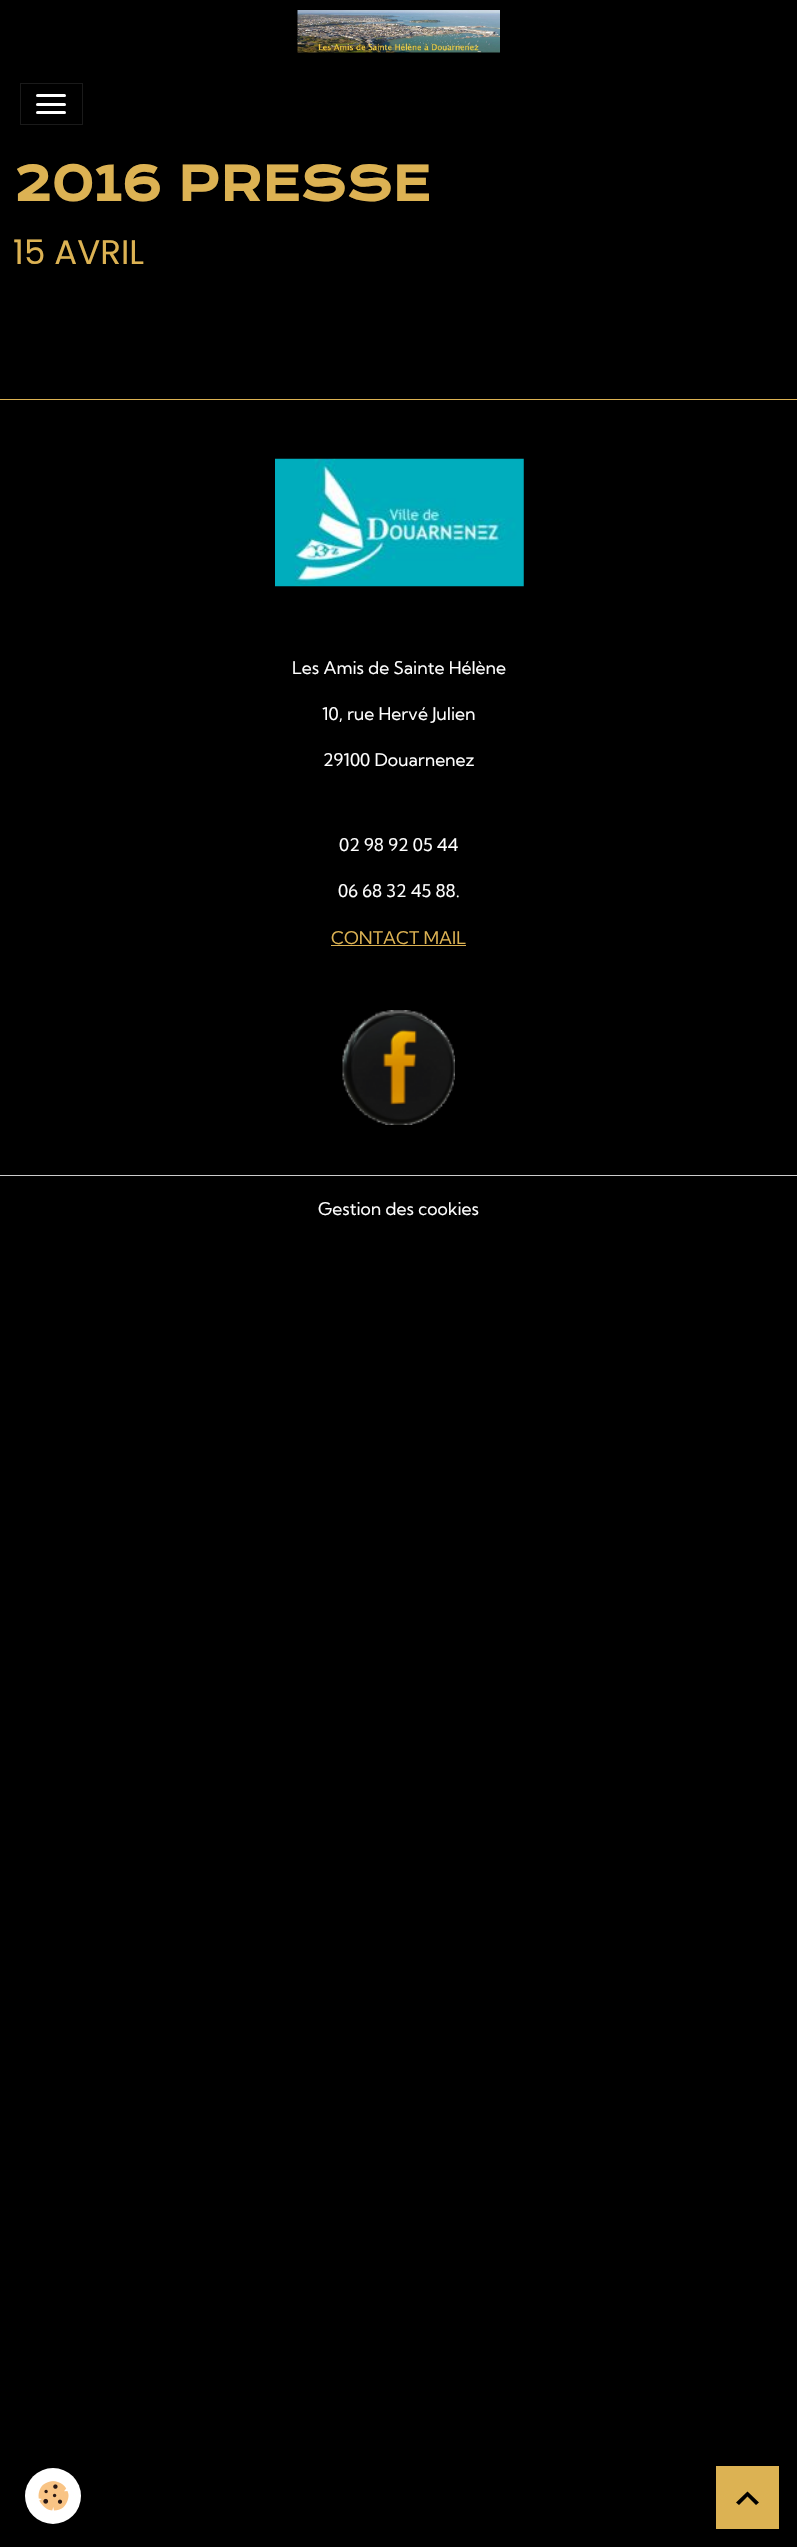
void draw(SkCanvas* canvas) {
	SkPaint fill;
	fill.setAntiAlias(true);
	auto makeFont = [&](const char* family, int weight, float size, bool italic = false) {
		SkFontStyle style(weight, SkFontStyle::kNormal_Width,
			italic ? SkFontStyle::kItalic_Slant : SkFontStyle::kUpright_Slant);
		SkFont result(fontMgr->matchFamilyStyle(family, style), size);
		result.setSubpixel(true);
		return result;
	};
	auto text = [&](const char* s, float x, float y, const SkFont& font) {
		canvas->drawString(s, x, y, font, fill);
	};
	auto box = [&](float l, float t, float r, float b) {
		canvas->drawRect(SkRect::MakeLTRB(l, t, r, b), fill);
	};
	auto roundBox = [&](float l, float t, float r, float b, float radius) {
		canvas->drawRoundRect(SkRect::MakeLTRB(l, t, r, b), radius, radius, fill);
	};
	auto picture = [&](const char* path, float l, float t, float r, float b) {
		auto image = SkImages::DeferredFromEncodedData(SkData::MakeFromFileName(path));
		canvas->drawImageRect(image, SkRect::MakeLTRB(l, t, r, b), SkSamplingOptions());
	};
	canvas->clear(0xFF000000);
	picture("image0.png", 297, 10, 500, 53);
	fill.setStyle(SkPaint::kStroke_Style);
	fill.setStrokeWidth(1);
	fill.setColor(0xFF1A1A1A);
	canvas->drawRect(SkRect::MakeLTRB(20.5f, 83.5f, 82.5f, 124.5f), fill);
	fill.setStyle(SkPaint::kFill_Style);
	fill.setColor(0xFFFFFFFF);
	roundBox(36, 94, 66, 97, 1.5f);
	roundBox(36, 103, 66, 106, 1.5f);
	roundBox(36, 111, 66, 114, 1.5f);
	fill.setColor(0xFFDCB253);
	box(0, 399, 797, 400);
	picture("image1.png", 275, 458, 524, 587);
	box(331, 945, 466, 946);
	picture("image2.png", 342, 1010, 455, 1125);
	fill.setColor(0xFFCCCCCC);
	box(0, 1175, 797, 1176);
	fill.setColor(0xFFFFFFFF);
	canvas->drawCircle(53, 2496, 28, fill);
	picture("image3.png", 38, 2481, 69, 2511);
	fill.setColor(0xFFDCB253);
	box(716, 2466, 779, 2529);
	fill.setColor(0xFF000000);
	canvas->drawPath(SkPathBuilder().moveTo(747.5f, 2491.5f).lineTo(759, 2502.5f).lineTo(756, 2505).lineTo(747.5f, 2496.5f).lineTo(739, 2505).lineTo(736, 2502.5f).close().detach(), fill);
	auto font1 = makeFont("Krona One", 700, 46);
	fill.setColor(0xFFDCB253);
	text("2016 PRESSE", 13, 201, font1);
	auto font2 = makeFont("Poppins", 400, 34);
	text("15 AVRIL", 13, 264, font2);
	auto font3 = makeFont("Kumbh Sans", 400, 17.5f);
	fill.setColor(0xFFFFFFFF);
	text("Les Amis de Sainte Hélène", 292, 674, font3);
	text("10, rue Hervé Julien", 322, 720, font3);
	text("29100 Douarnenez", 323, 766, font3);
	text("02 98 92 05 44", 339, 851, font3);
	text("06 68 32 45 88.", 338, 897, font3);
	fill.setColor(0xFFDCB253);
	text("CONTACT MAIL", 331, 944, font3);
	fill.setColor(0xFFFFFFFF);
	text("Gestion des cookies", 318, 1215, font3);
}
